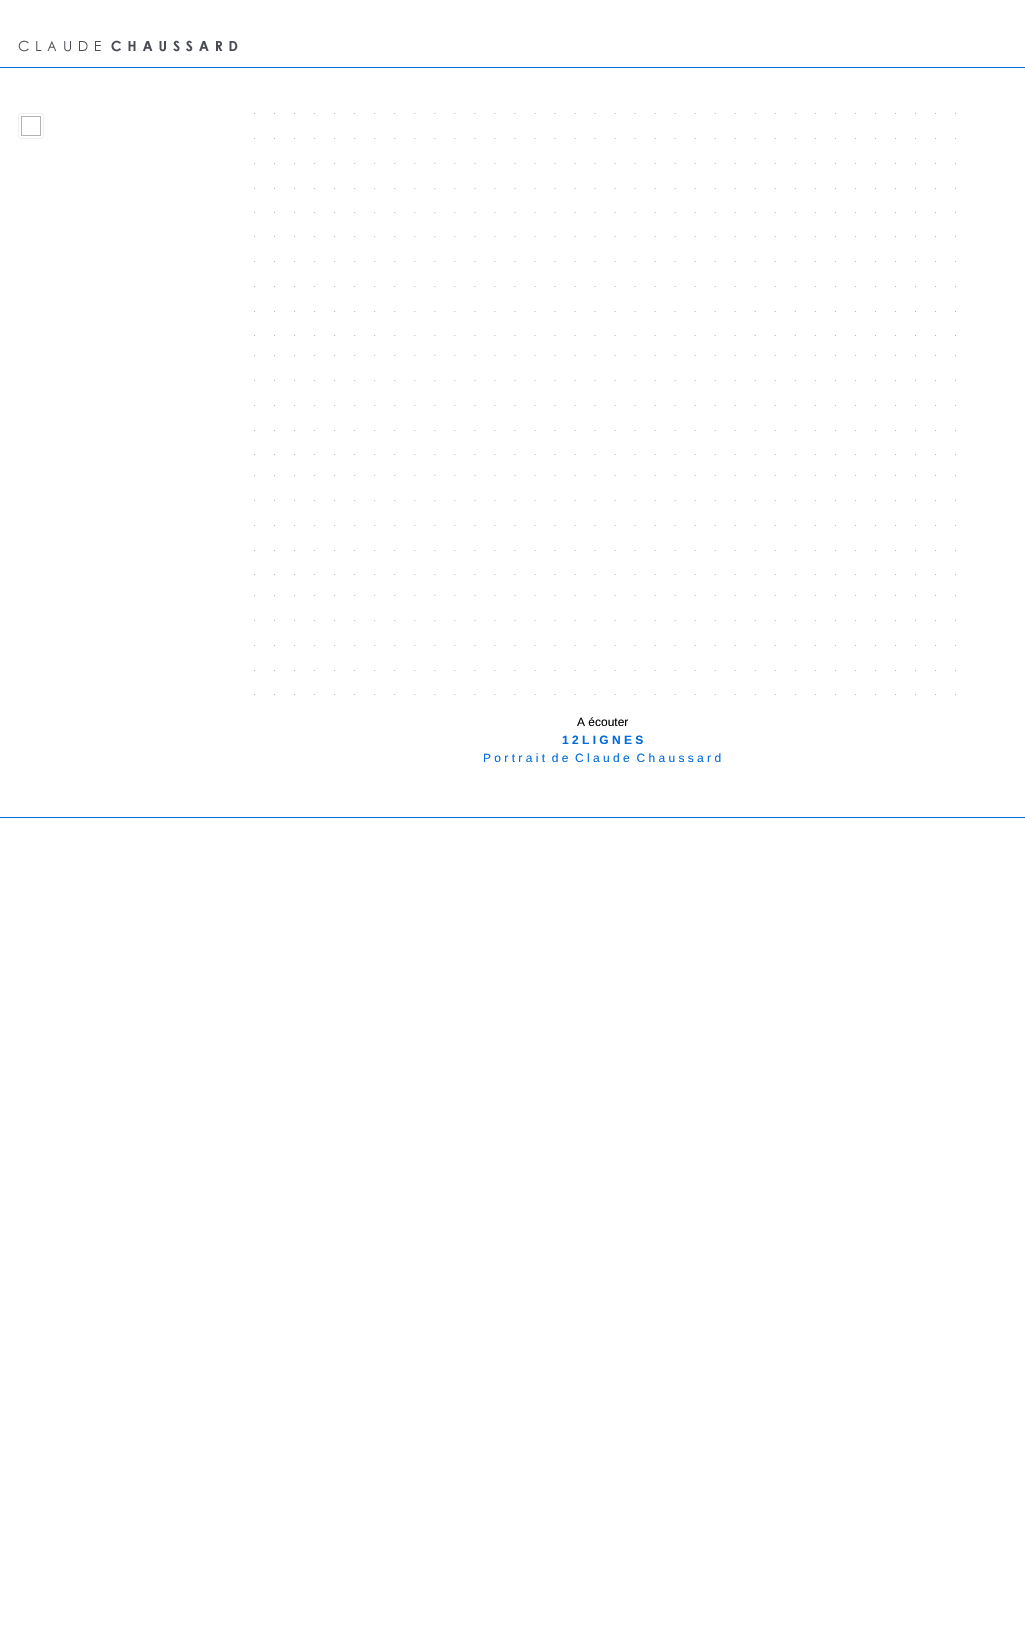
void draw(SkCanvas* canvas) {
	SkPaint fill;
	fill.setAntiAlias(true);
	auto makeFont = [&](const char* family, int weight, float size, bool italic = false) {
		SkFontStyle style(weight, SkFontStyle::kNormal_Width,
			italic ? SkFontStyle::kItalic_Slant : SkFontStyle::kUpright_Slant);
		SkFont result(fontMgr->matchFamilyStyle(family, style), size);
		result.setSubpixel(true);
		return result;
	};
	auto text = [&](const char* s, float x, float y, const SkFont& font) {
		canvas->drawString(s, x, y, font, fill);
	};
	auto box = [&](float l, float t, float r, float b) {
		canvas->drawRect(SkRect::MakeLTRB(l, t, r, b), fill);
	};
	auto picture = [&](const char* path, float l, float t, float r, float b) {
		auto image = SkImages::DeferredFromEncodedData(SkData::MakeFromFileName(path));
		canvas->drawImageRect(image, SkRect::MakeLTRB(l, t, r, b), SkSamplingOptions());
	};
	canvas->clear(0xFFFFFFFF);
	fill.setColor(0xFF006DDE);
	box(0, 67, 1025, 68);
	picture("image0.png", 18, 40, 238, 52);
	picture("image1.png", 18, 113, 44, 139);
	picture("image2.png", 254, 113, 956, 695);
	box(0, 817, 1025, 818);
	auto font1 = makeFont("Liberation Sans", 400, 12);
	fill.setColor(0xFF000000);
	text("A écouter", 577, 726, font1);
	auto font2 = makeFont("Liberation Sans", 700, 12);
	fill.setColor(0xFF006DDE);
	text("1 2 L I G N E S", 562, 744, font2);
	text("P o r t r a i t  d e  C l a u d e  C h a u s s a r d", 483, 762, font1);
}
